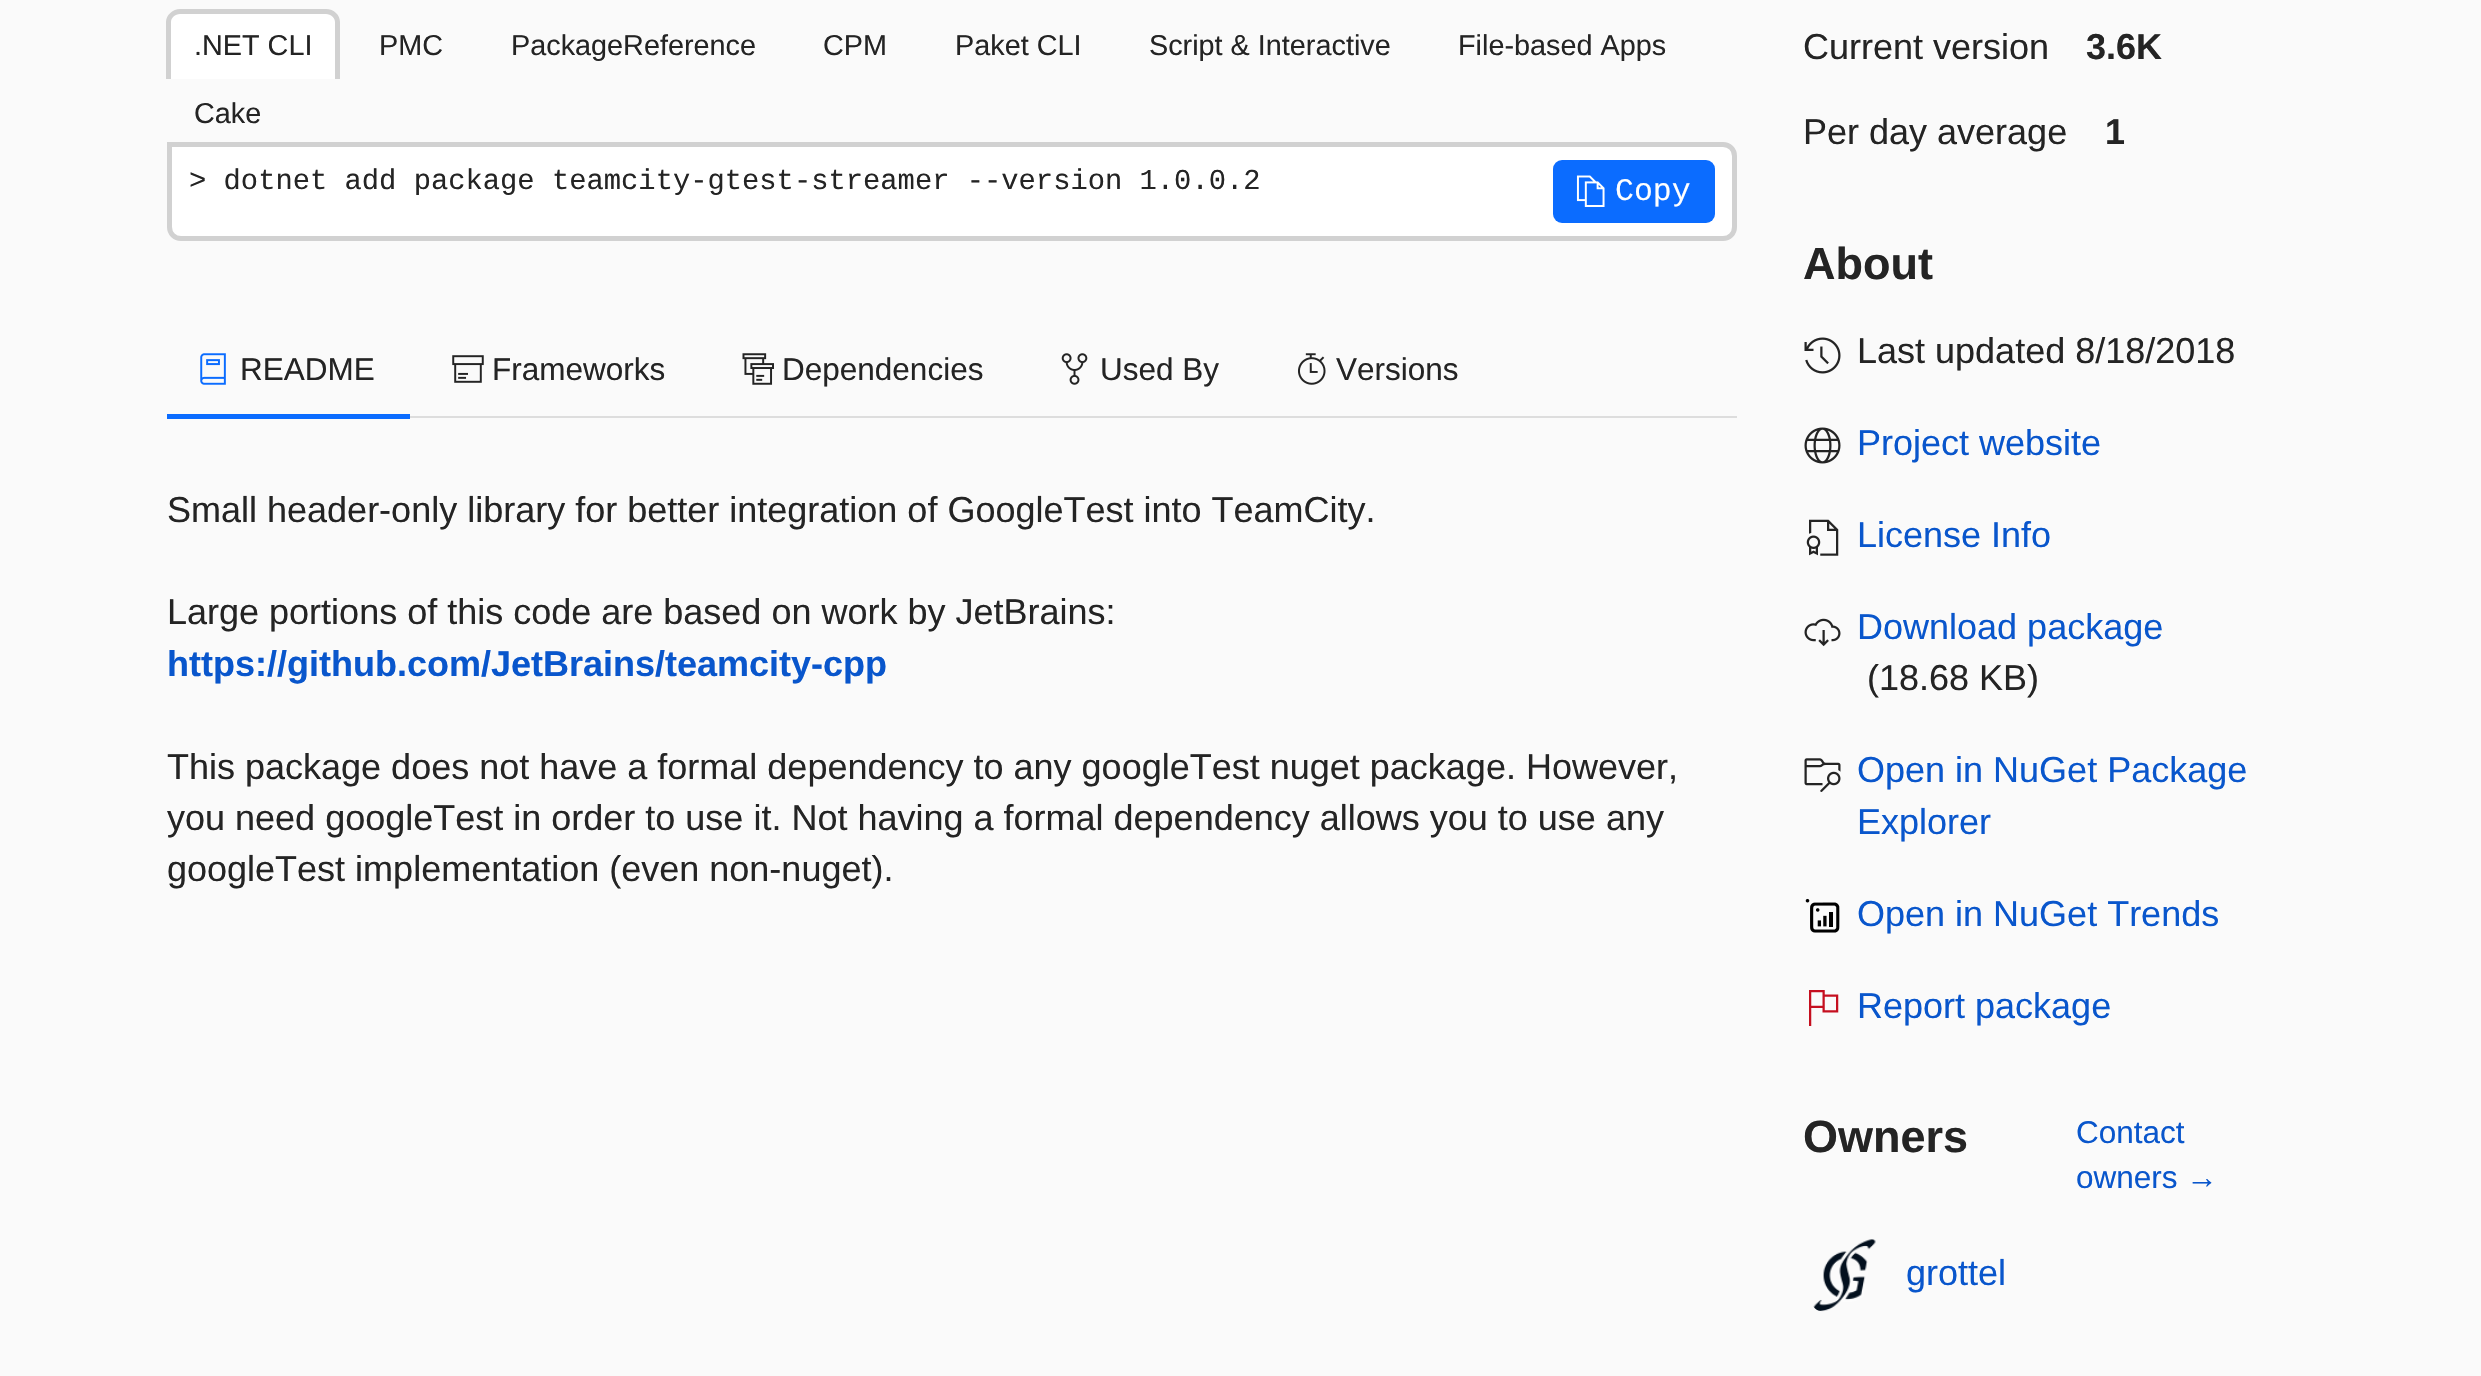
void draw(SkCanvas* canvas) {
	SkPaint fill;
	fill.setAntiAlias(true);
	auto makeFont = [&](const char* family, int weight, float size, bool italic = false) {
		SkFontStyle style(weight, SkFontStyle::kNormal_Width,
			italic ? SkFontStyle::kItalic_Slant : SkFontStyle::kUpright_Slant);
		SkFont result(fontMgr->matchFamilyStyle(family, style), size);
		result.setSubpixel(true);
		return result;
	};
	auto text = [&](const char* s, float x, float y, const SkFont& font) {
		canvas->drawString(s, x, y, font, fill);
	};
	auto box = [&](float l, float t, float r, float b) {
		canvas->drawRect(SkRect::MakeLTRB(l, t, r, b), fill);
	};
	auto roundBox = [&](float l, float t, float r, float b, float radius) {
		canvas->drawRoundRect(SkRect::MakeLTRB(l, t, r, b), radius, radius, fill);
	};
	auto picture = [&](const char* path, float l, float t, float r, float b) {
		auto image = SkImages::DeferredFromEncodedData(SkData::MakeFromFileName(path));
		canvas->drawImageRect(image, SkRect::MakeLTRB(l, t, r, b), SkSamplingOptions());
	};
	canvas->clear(0xFFFAFAFA);
	fill.setColor(0xFFFFFFFF);
	canvas->drawPath(SkPathBuilder().moveTo(181, 9).lineTo(326, 9).cubicTo(333.5f, 9, 340, 15.5f, 340, 23).lineTo(340, 79).lineTo(167, 79).lineTo(167, 23).cubicTo(167, 15.5f, 173.5f, 9, 181, 9).close().detach(), fill);
	fill.setColor(0xFFD1D1D1);
	canvas->drawPath(SkPathBuilder(SkPathFillType::kEvenOdd).moveTo(180, 9).lineTo(326, 9).cubicTo(334, 9, 340, 15, 340, 22).lineTo(340, 79).lineTo(166, 79).lineTo(166, 22).cubicTo(166, 15, 173, 9, 180, 9).close().moveTo(180, 14).lineTo(326, 14).cubicTo(331, 14, 335, 18, 335, 22).lineTo(335, 79).lineTo(171, 79).lineTo(171, 22).cubicTo(171, 18, 175, 14, 180, 14).close().detach(), fill);
	fill.setColor(0xFFFFFFFF);
	canvas->drawPath(SkPathBuilder().moveTo(169.5f, 144.5f).lineTo(1723, 144.5f).cubicTo(1729.5f, 144.5f, 1734.5f, 149.5f, 1734.5f, 156).lineTo(1734.5f, 227).cubicTo(1734.5f, 233.5f, 1729.5f, 238.5f, 1723, 238.5f).lineTo(181, 238.5f).cubicTo(174.5f, 238.5f, 169.5f, 233.5f, 169.5f, 227).close().detach(), fill);
	fill.setStyle(SkPaint::kStroke_Style);
	fill.setStrokeWidth(5);
	fill.setColor(0xFFD1D1D1);
	canvas->drawPath(SkPathBuilder().moveTo(169.5f, 144.5f).lineTo(1723, 144.5f).cubicTo(1729.5f, 144.5f, 1734.5f, 149.5f, 1734.5f, 156).lineTo(1734.5f, 227).cubicTo(1734.5f, 233.5f, 1729.5f, 238.5f, 1723, 238.5f).lineTo(181, 238.5f).cubicTo(174.5f, 238.5f, 169.5f, 233.5f, 169.5f, 227).close().detach(), fill);
	fill.setStyle(SkPaint::kFill_Style);
	fill.setColor(0xFF0B6CFF);
	roundBox(1553, 160, 1715, 223, 9);
	picture("image0.png", 1576, 175, 1605, 207);
	fill.setColor(0xFFDDDDDD);
	box(410, 416, 1737, 418);
	fill.setColor(0xFF0B6CFF);
	box(167, 414, 410, 419);
	picture("image1.png", 200, 353, 226, 385);
	picture("image2.png", 452, 355, 484, 383);
	picture("image3.png", 742, 353, 774, 385);
	picture("image4.png", 1061, 353, 1088, 385);
	picture("image5.png", 1298, 353, 1326, 385);
	picture("image6.png", 1804, 337, 1841, 374);
	picture("image7.png", 1804, 427, 1841, 464);
	picture("image8.png", 1806, 519, 1839, 556);
	picture("image9.png", 1804, 618, 1841, 647);
	picture("image10.png", 1804, 758, 1841, 792);
	picture("image11.png", 1805, 898, 1840, 933);
	picture("image12.png", 1809, 990, 1839, 1026);
	picture("image13.png", 1813, 1239, 1876, 1312);
	auto font1 = makeFont("Liberation Sans", 400, 28.8f);
	fill.setColor(0xFF242424);
	text(".NET CLI", 194, 55, font1);
	text("PMC", 379, 55, font1);
	text("PackageReference", 511, 55, font1);
	text("CPM", 823, 55, font1);
	text("Paket CLI", 955, 55, font1);
	text("Script & Interactive", 1149, 55, font1);
	text("File-based Apps", 1458, 55, font1);
	text("Cake", 194, 123, font1);
	auto font2 = makeFont("Liberation Mono", 400, 28.8f);
	text("> dotnet add package teamcity-gtest-streamer --version 1.0.0.2", 189, 189, font2);
	auto font3 = makeFont("Liberation Mono", 400, 31.5f);
	fill.setColor(0xFFFFFFFF);
	text("Copy", 1615, 200, font3);
	auto font4 = makeFont("Liberation Sans", 400, 31.5f);
	fill.setColor(0xFF242424);
	text("README", 240, 380, font4);
	text("Frameworks", 492, 380, font4);
	text("Dependencies", 782, 380, font4);
	text("Used By", 1100, 380, font4);
	text("Versions", 1336, 380, font4);
	auto font5 = makeFont("Liberation Sans", 400, 36);
	text("Small header-only library for better integration of GoogleTest into TeamCity.", 167, 522, font5);
	text("Large portions of this code are based on work by JetBrains:", 167, 624, font5);
	auto font6 = makeFont("Liberation Sans", 700, 36);
	fill.setColor(0xFF0956CC);
	text("https://github.com/JetBrains/teamcity-cpp", 167, 676, font6);
	fill.setColor(0xFF242424);
	text("This package does not have a formal dependency to any googleTest nuget package. However,", 167, 779, font5);
	text("you need googleTest in order to use it. Not having a formal dependency allows you to use any", 167, 830, font5);
	text("googleTest implementation (even non-nuget).", 167, 881, font5);
	text("Current version", 1803, 59, font5);
	text("3.6K", 2086, 59, font6);
	text("Per day average", 1803, 144, font5);
	text("1", 2105, 144, font6);
	auto font7 = makeFont("Liberation Sans", 700, 45);
	text("About", 1803, 279, font7);
	text("Last updated 8/18/2018", 1857, 363, font5);
	fill.setColor(0xFF0956CC);
	text("Project website", 1857, 455, font5);
	text("License Info", 1857, 547, font5);
	text("Download package", 1857, 639, font5);
	fill.setColor(0xFF242424);
	text("(18.68 KB)", 1867, 690, font5);
	fill.setColor(0xFF0956CC);
	text("Open in NuGet Package", 1857, 782, font5);
	text("Explorer", 1857, 834, font5);
	text("Open in NuGet Trends", 1857, 926, font5);
	text("Report package", 1857, 1018, font5);
	fill.setColor(0xFF242424);
	text("Owners", 1803, 1152, font7);
	fill.setColor(0xFF0956CC);
	text("Contact", 2076, 1143, font4);
	text("owners →", 2076, 1188, font4);
	text("grottel", 1906, 1285, font5);
}
